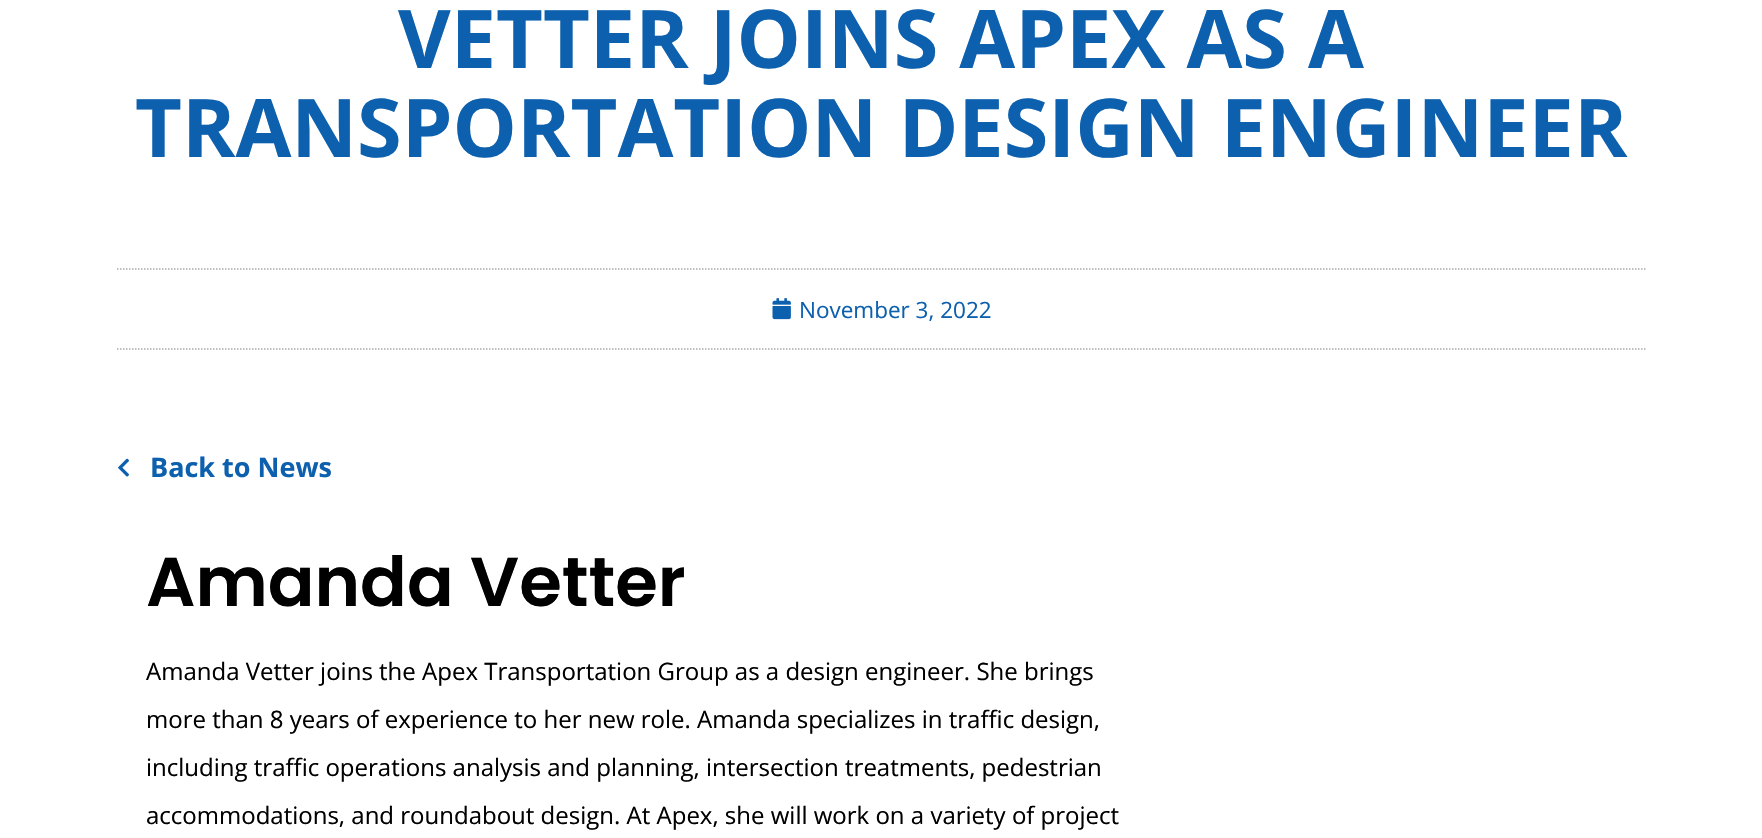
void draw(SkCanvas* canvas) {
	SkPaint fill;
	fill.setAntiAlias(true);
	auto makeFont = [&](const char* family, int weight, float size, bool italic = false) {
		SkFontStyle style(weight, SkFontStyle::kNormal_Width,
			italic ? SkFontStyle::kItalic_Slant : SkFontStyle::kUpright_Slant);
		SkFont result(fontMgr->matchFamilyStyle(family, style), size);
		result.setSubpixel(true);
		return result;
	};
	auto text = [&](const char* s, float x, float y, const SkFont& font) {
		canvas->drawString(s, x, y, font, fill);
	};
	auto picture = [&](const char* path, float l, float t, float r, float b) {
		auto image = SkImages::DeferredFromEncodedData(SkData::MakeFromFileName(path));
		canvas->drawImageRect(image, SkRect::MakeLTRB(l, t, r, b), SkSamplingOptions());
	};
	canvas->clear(0xFFFFFFFF);
	fill.setStyle(SkPaint::kStroke_Style);
	fill.setStrokeWidth(1.5f);
	fill.setColor(0xFFAAAAAA);
	fill.setPathEffect(SkDashPathEffect::Make({{1.5f, 1.5f}}, 0));
	canvas->drawPath(SkPathBuilder().moveTo(117, 269).lineTo(1647, 269).detach(), fill);
	fill.setPathEffect(nullptr);
	fill.setPathEffect(SkDashPathEffect::Make({{1.5f, 1.5f}}, 0));
	canvas->drawPath(SkPathBuilder().moveTo(117, 349).lineTo(1647, 349).detach(), fill);
	fill.setPathEffect(nullptr);
	picture("image0.png", 772, 298, 791, 320);
	picture("image1.png", 118, 458, 129, 477);
	auto font1 = makeFont("Open Sans", 700, 81);
	fill.setStyle(SkPaint::kFill_Style);
	fill.setColor(0xFF0D60AE);
	text("VETTER JOINS APEX AS A", 398, 68, font1);
	text("TRANSPORTATION DESIGN ENGINEER", 135, 157, font1);
	auto font2 = makeFont("Open Sans", 400, 22.5f);
	text("November 3, 2022", 799, 318, font2);
	auto font3 = makeFont("Open Sans", 700, 27);
	text("Back to News", 150, 477, font3);
	auto font4 = makeFont("Poppins", 600, 69);
	fill.setColor(0xFF000000);
	text("Amanda Vetter", 146, 606, font4);
	auto font5 = makeFont("Open Sans", 400, 24);
	text("Amanda Vetter joins the Apex Transportation Group as a design engineer. She brings", 146, 680, font5);
	text("more than 8 years of experience to her new role. Amanda specializes in traffic design,", 146, 728, font5);
	text("including traffic operations analysis and planning, intersection treatments, pedestrian", 146, 776, font5);
	text("accommodations, and roundabout design. At Apex, she will work on a variety of project", 146, 824, font5);
}
